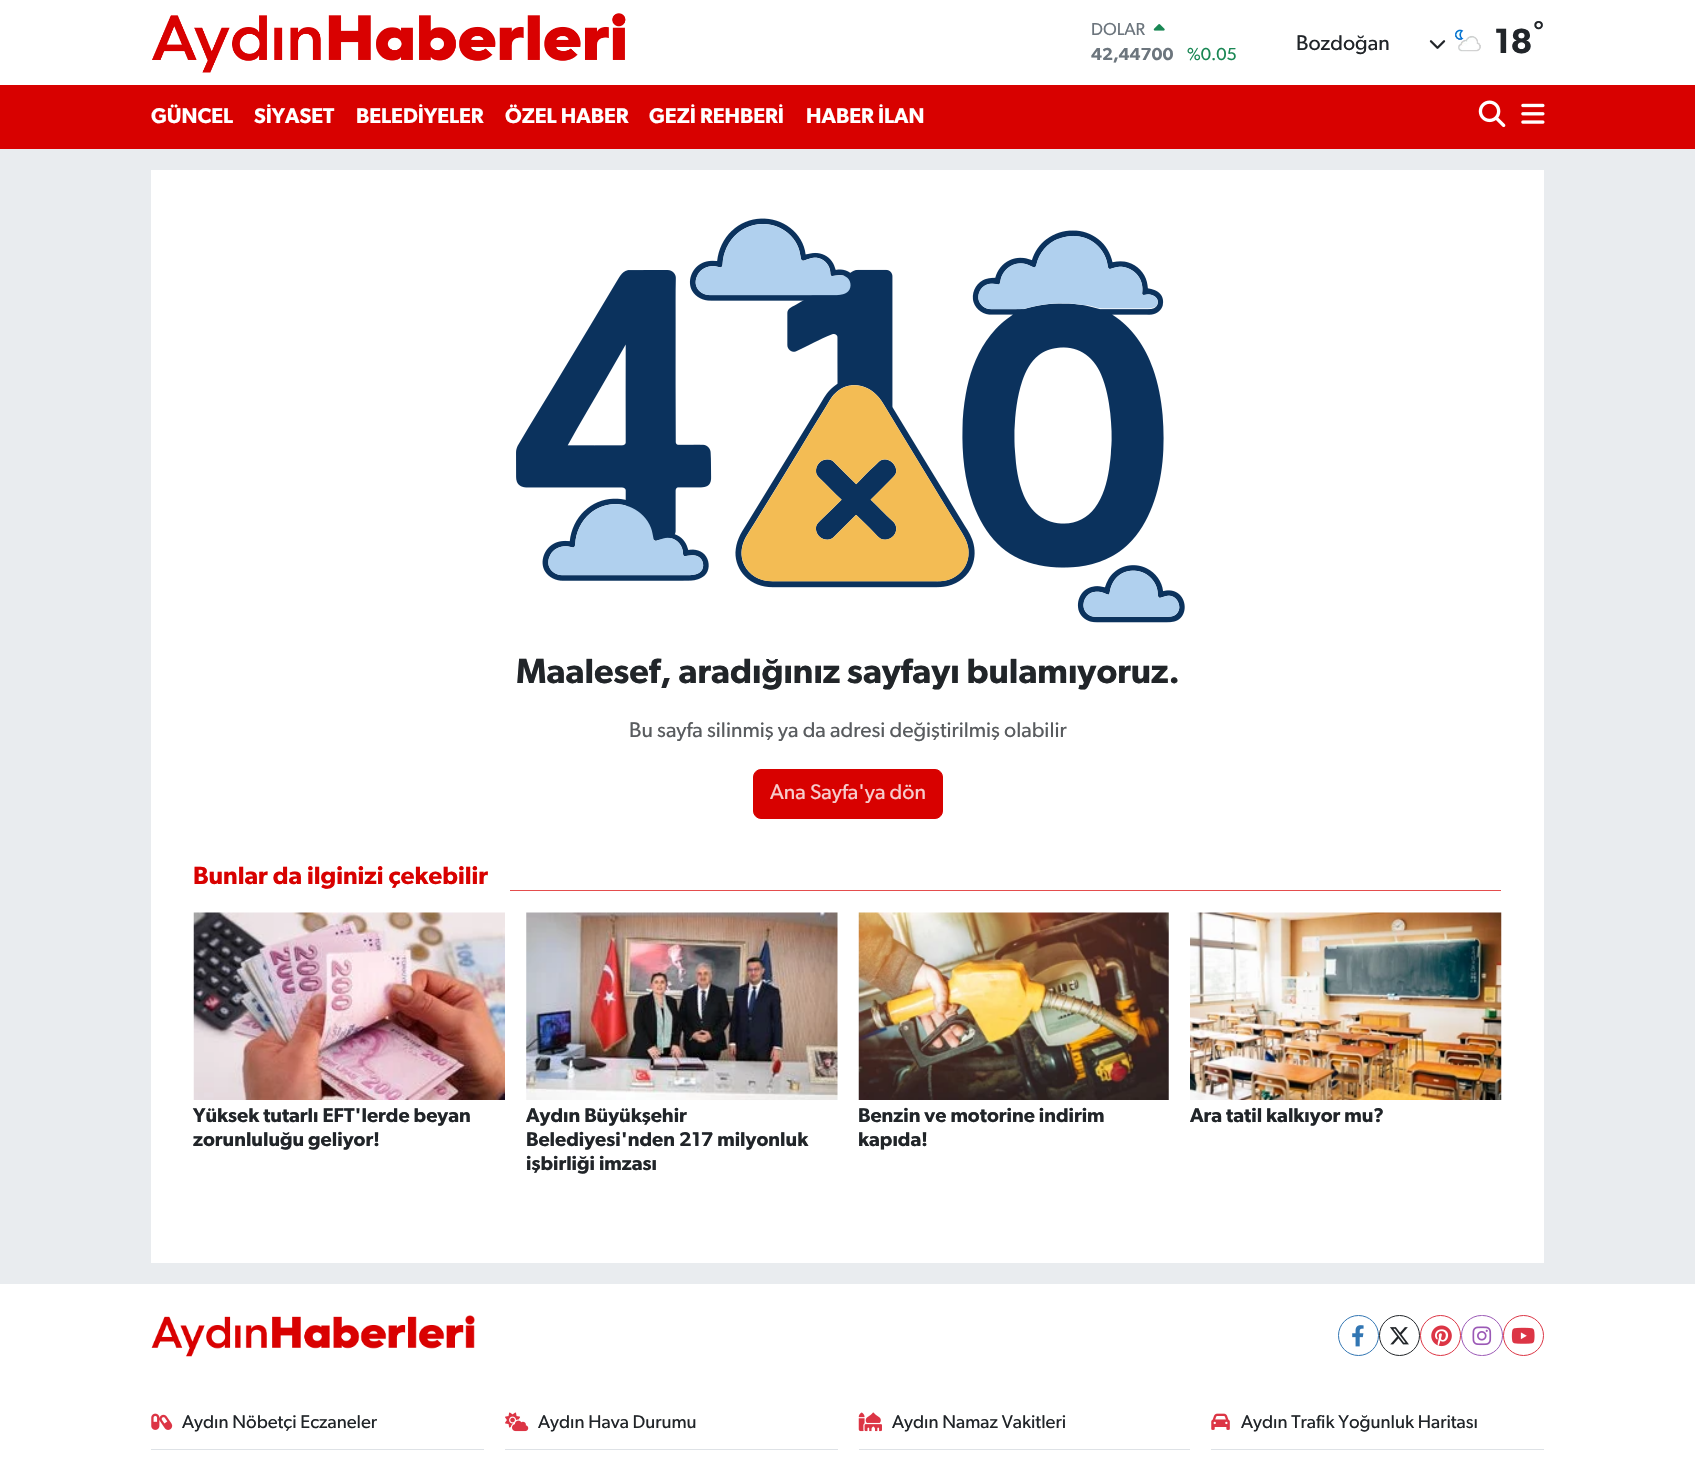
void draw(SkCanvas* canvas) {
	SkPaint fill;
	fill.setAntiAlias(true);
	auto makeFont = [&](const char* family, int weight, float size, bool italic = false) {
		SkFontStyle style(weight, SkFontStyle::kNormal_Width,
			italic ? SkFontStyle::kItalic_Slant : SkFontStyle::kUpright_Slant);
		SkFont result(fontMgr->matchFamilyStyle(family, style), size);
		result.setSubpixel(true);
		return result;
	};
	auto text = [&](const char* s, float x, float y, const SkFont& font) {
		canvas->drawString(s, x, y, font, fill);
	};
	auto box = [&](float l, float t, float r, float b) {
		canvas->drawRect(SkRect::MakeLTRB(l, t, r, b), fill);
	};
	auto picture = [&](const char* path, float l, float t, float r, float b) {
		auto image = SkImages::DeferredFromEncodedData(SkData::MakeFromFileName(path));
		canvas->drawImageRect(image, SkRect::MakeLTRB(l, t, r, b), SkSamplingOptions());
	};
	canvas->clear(0xFFE9ECEF);
	fill.setColor(0xFFFFFFFF);
	box(0, 0, 1695, 85);
	picture("image0.png", 152, 13, 626, 73);
	picture("image1.png", 1153, 24, 1165, 31);
	picture("image2.png", 1429, 40, 1446, 49);
	picture("image3.png", 1455, 29, 1481, 52);
	fill.setColor(0xFFD80100);
	box(0, 85, 1695, 149);
	picture("image4.png", 1478, 100, 1506, 128);
	picture("image5.png", 1521, 103, 1545, 124);
	fill.setColor(0xFFFFFFFF);
	box(151, 170, 1544, 1263);
	picture("image6.png", 516, 218, 1185, 623);
	fill.setColor(0xFFD80100);
	canvas->drawRoundRect(SkRect::MakeLTRB(753.5f, 769.5f, 942.5f, 818.5f), 7.5f, 7.5f, fill);
	fill.setStyle(SkPaint::kStroke_Style);
	fill.setStrokeWidth(1);
	canvas->drawRoundRect(SkRect::MakeLTRB(753.5f, 769.5f, 942.5f, 818.5f), 7.5f, 7.5f, fill);
	fill.setStyle(SkPaint::kFill_Style);
	fill.setColor(0xFFE44D4D);
	box(510, 890, 1501, 891);
	picture("image7.png", 193, 912, 505, 1100);
	picture("image8.png", 526, 912, 838, 1100);
	picture("image9.png", 858, 912, 1169, 1100);
	picture("image10.png", 1190, 912, 1502, 1100);
	fill.setColor(0xFFFFFFFF);
	box(0, 1284, 1695, 1464);
	picture("image11.png", 151, 1315, 475, 1357);
	fill.setStyle(SkPaint::kStroke_Style);
	fill.setColor(0xFF3276B3);
	canvas->drawCircle(1358.5f, 1335.5f, 20, fill);
	picture("image12.png", 1352, 1325, 1364, 1347);
	fill.setColor(0xFF212529);
	canvas->drawCircle(1399.5f, 1335.5f, 20, fill);
	picture("image13.png", 1390, 1327, 1409, 1345);
	fill.setColor(0xFFDC3545);
	canvas->drawCircle(1440.5f, 1335.5f, 20, fill);
	picture("image14.png", 1431, 1325, 1452, 1347);
	fill.setColor(0xFF9B59B6);
	canvas->drawRoundRect(SkRect::MakeLTRB(1461.5f, 1315.5f, 1502.5f, 1355.5f), 20, 20, fill);
	picture("image15.png", 1472, 1326, 1492, 1346);
	fill.setColor(0xFFDC3545);
	canvas->drawCircle(1523.5f, 1335.5f, 20, fill);
	picture("image16.png", 1511, 1327, 1535, 1344);
	fill.setStyle(SkPaint::kFill_Style);
	fill.setColor(0xFFDEE2E6);
	box(151, 1449, 484, 1450);
	picture("image17.png", 151, 1413, 173, 1430);
	box(505, 1449, 838, 1450);
	picture("image18.png", 505, 1412, 529, 1432);
	box(859, 1449, 1190, 1450);
	picture("image19.png", 858, 1412, 882, 1432);
	box(1211, 1449, 1544, 1450);
	picture("image20.png", 1211, 1413, 1230, 1430);
	auto font1 = makeFont("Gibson", 400, 17.5f);
	fill.setColor(0xFF6C757D);
	text("DOLAR", 1091, 35, font1);
	auto font2 = makeFont("Gibson", 600, 17.5f);
	text("42,44700", 1091, 60, font2);
	fill.setColor(0xFF198754);
	text("%0.05", 1187, 60, font1);
	auto font3 = makeFont("Gibson", 400, 21.25f);
	fill.setColor(0xFF212529);
	text("Bozdoğan", 1296, 50, font3);
	auto font4 = makeFont("Gibson", 600, 26);
	text("°", 1533, 40, font4);
	auto font5 = makeFont("Gibson", 600, 35);
	text("18", 1494, 53, font5);
	auto font6 = makeFont("Gibson", 600, 21.25f);
	fill.setColor(0xFFFFFFFF);
	text("GÜNCEL", 151, 123, font6);
	text("SİYASET", 254, 123, font6);
	text("BELEDİYELER", 356, 123, font6);
	text("ÖZEL HABER", 505, 123, font6);
	text("GEZİ REHBERİ", 649, 123, font6);
	text("HABER İLAN", 806, 123, font6);
	fill.setColor(0xFF212529);
	text("Maalesef, aradığınız sayfayı bulamıyoruz.", 516, 683, font5);
	fill.setColor(0xFF595C5F);
	text("Bu sayfa silinmiş ya da adresi değiştirilmiş olabilir", 629, 737, font3);
	fill.setColor(0xFFF7CCCC);
	text("Ana Sayfa'ya dön", 770, 799, font3);
	auto font7 = makeFont("Gibson", 600, 25);
	fill.setColor(0xFFD80100);
	text("Bunlar da ilginizi çekebilir", 193, 884, font7);
	auto font8 = makeFont("Gibson", 600, 20);
	fill.setColor(0xFF212529);
	text("Yüksek tutarlı EFT'lerde beyan", 193, 1122, font8);
	text("zorunluluğu geliyor!", 193, 1146, font8);
	text("Aydın Büyükşehir", 526, 1122, font8);
	text("Belediyesi'nden 217 milyonluk", 526, 1146, font8);
	text("işbirliği imzası", 526, 1170, font8);
	text("Benzin ve motorine indirim", 858, 1122, font8);
	text("kapıda!", 858, 1146, font8);
	text("Ara tatil kalkıyor mu?", 1190, 1122, font8);
	auto font9 = makeFont("Gibson", 400, 18.6f);
	text("Aydın Nöbetçi Eczaneler", 182, 1428, font9);
	text("Aydın Hava Durumu", 538, 1428, font9);
	text("Aydın Namaz Vakitleri", 892, 1428, font9);
	text("Aydın Trafik Yoğunluk Haritası", 1241, 1428, font9);
}
